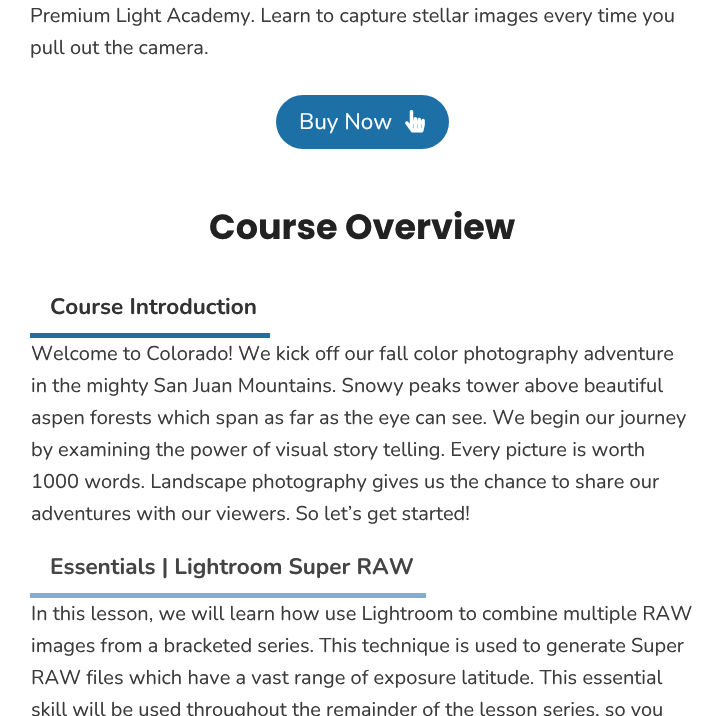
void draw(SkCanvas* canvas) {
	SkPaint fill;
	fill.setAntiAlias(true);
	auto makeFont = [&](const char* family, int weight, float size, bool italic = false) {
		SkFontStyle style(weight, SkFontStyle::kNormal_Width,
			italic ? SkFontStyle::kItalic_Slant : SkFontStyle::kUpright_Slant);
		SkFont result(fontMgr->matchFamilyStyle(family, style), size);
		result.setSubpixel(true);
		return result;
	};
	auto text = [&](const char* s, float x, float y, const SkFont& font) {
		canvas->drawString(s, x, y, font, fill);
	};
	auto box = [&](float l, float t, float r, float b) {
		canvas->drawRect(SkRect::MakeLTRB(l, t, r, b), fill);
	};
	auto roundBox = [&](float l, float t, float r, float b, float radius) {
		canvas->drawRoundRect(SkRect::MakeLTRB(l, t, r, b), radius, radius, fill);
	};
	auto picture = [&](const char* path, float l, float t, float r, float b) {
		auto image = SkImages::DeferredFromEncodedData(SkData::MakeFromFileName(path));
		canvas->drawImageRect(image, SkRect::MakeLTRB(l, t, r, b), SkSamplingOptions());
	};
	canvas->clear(0xFFFFFFFF);
	fill.setColor(0xFF1D70A6);
	roundBox(276, 95, 449, 149, 27);
	picture("image0.png", 405, 110, 425, 133);
	box(30, 333, 270, 338);
	fill.setColor(0xFF80AFCD);
	box(30, 593, 426, 598);
	auto font1 = makeFont("Nunito", 400, 20);
	fill.setColor(0xFF3B3B3B);
	text("Premium Light Academy. Learn to capture stellar images every time you", 30, 22, font1);
	text("pull out the camera.", 30, 54, font1);
	auto font2 = makeFont("Nunito", 400, 22.5f);
	fill.setColor(0xFFFFFFFF);
	text("Buy Now", 299, 129, font2);
	auto font3 = makeFont("Poppins", 700, 35);
	fill.setColor(0xFF222222);
	text("Course Overview", 209, 239, font3);
	auto font4 = makeFont("Nunito", 700, 22.5f);
	fill.setColor(0xFF333333);
	text("Course Introduction", 50, 314, font4);
	fill.setColor(0xFF3B3B3B);
	text("Welcome to Colorado! We kick off our fall color photography adventure", 31, 360, font1);
	text("in the mighty San Juan Mountains. Snowy peaks tower above beautiful", 31, 392, font1);
	text("aspen forests which span as far as the eye can see. We begin our journey", 31, 424, font1);
	text("by examining the power of visual story telling. Every picture is worth", 31, 456, font1);
	text("1000 words. Landscape photography gives us the chance to share our", 31, 488, font1);
	text("adventures with our viewers. So let’s get started!", 31, 520, font1);
	fill.setColor(0xFF444444);
	text("Essentials | Lightroom Super RAW", 50, 574, font4);
	fill.setColor(0xFF3B3B3B);
	text("In this lesson, we will learn how use Lightroom to combine multiple RAW", 31, 620, font1);
	text("images from a bracketed series. This technique is used to generate Super", 31, 652, font1);
	text("RAW files which have a vast range of exposure latitude. This essential", 31, 684, font1);
	text("skill will be used throughout the remainder of the lesson series, so you", 31, 716, font1);
}
